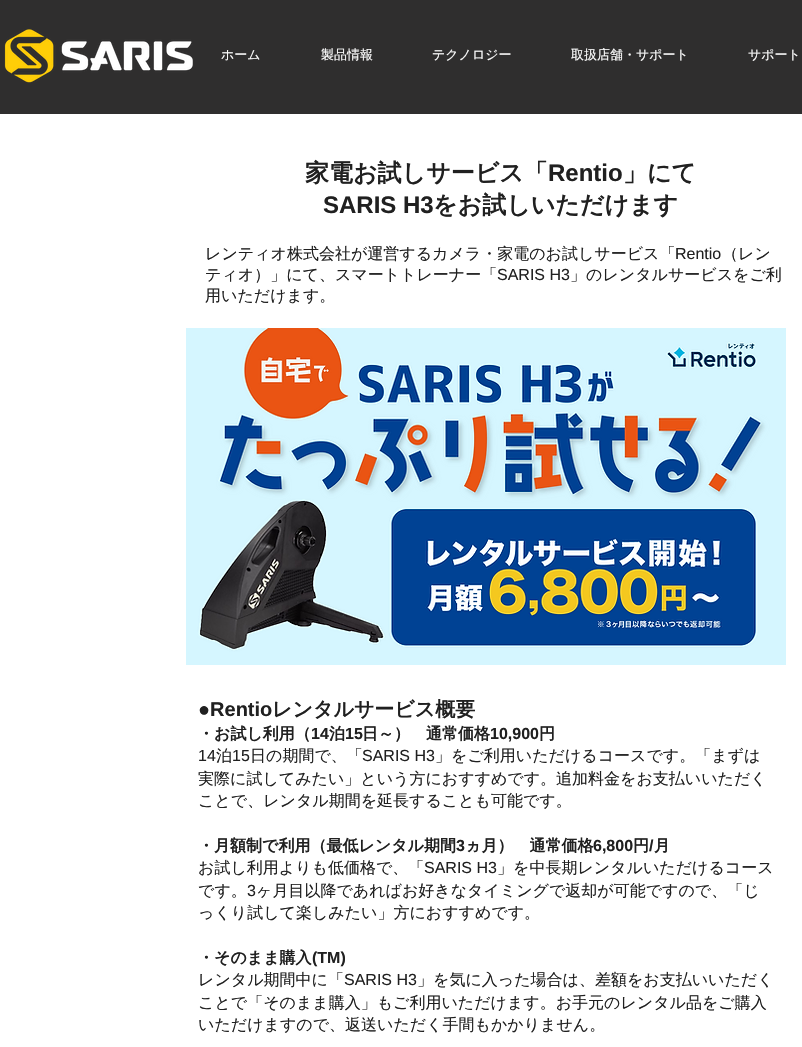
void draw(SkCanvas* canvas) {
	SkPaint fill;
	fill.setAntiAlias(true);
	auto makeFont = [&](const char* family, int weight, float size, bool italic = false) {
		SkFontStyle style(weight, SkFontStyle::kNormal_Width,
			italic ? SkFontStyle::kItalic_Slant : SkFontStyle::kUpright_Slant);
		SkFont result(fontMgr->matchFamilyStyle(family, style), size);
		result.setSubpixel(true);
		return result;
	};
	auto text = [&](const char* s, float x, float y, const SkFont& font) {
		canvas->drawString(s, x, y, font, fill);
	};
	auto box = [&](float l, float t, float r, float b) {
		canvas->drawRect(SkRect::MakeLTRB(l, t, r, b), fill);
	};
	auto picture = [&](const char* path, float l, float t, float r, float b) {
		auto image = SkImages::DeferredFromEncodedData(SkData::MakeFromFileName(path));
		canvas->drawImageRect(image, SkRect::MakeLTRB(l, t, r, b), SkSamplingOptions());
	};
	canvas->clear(0xFFFFFFFF);
	fill.setColor(0xFF2F2E2E);
	box(0, 0, 802, 114);
	picture("image0.png", 4, 29, 193, 83);
	picture("image1.png", 186, 328, 786, 665);
	auto font1 = makeFont("WenQuanYi Zen Hei", 500, 13);
	fill.setColor(0xFFFFFFFF);
	text("ホーム", 221, 59, font1);
	text("製品情報", 321, 59, font1);
	text("テクノロジー", 432, 59, font1);
	text("取扱店舗・サポート", 571, 59, font1);
	text("サポート", 748, 59, font1);
	auto font2 = makeFont("WenQuanYi Zen Hei", 700, 24);
	fill.setColor(0xFF202020);
	text("家電お試しサービス「", 305, 181, font2);
	auto font3 = makeFont("Liberation Sans", 700, 24);
	text("Rentio", 548, 181, font3);
	text("」にて", 623, 181, font2);
	text("SARIS H3", 323, 213, font3);
	text("をお試しいただけます", 433, 213, font2);
	auto font4 = makeFont("WenQuanYi Zen Hei", 500, 16);
	text("レンティオ株式会社が運営するカメラ・家電のお試しサービス「", 205, 259, font4);
	auto font5 = makeFont("Liberation Sans", 400, 16);
	text("Rentio", 675, 259, font5);
	text("（レン", 722, 259, font4);
	text("ティオ）」にて、スマートトレーナー「", 205, 280, font4);
	text("SARIS H3", 497, 280, font5);
	text("」のレンタルサービスをご利", 570, 280, font4);
	text("用いただけます。", 205, 301, font4);
	auto font6 = makeFont("Liberation Sans", 700, 20);
	text("●Rentio", 198, 716, font6);
	auto font7 = makeFont("WenQuanYi Zen Hei", 700, 20);
	text("レンタルサービス概要", 272, 716, font7);
	auto font8 = makeFont("WenQuanYi Zen Hei", 700, 16);
	text("・お試し利用（", 198, 739, font8);
	auto font9 = makeFont("Liberation Sans", 700, 16);
	text("14", 311, 739, font9);
	text("泊", 329, 739, font8);
	text("15", 345, 739, font9);
	text("日～）　通常価格", 362, 739, font8);
	text("10,900", 490, 739, font9);
	text("円", 539, 739, font8);
	text("14", 198, 761, font5);
	text("泊", 216, 761, font4);
	text("15", 232, 761, font5);
	text("日の期間で、「", 250, 761, font4);
	text("SARIS H3", 362, 761, font5);
	text("」をご利用いただけるコースです。「まずは", 435, 761, font4);
	text("実際に試してみたい」という方におすすめです。追加料金をお支払いいただく", 198, 784, font4);
	text("ことで、レンタル期間を延長することも可能です。", 198, 806, font4);
	text("・月額制で利用（最低レンタル期間", 198, 851, font8);
	text("3", 456, 851, font9);
	text("ヵ月）　通常価格", 465, 851, font8);
	text("6,800", 593, 851, font9);
	text("円", 633, 851, font8);
	text("/", 649, 851, font9);
	text("月", 654, 851, font8);
	text("お試し利用よりも低価格で、「", 198, 873, font4);
	text("SARIS H3", 424, 873, font5);
	text("」を中長期レンタルいただけるコース", 497, 873, font4);
	text("です。", 198, 896, font4);
	text("3", 247, 896, font5);
	text("ヶ月目以降であればお好きなタイミングで返却が可能ですので、「じ", 256, 896, font4);
	text("っくり試して楽しみたい」方におすすめです。", 198, 918, font4);
	text("・そのまま購入", 198, 963, font8);
	text("(TM)", 312, 963, font9);
	text("レンタル期間中に「", 198, 985, font4);
	text("SARIS H3", 344, 985, font5);
	text("」を気に入った場合は、差額をお支払いいただく", 417, 985, font4);
	text("ことで「そのまま購入」もご利用いただけます。お手元のレンタル品をご購入", 198, 1008, font4);
	text("いただけますので、返送いただく手間もかかりません。", 198, 1030, font4);
}
